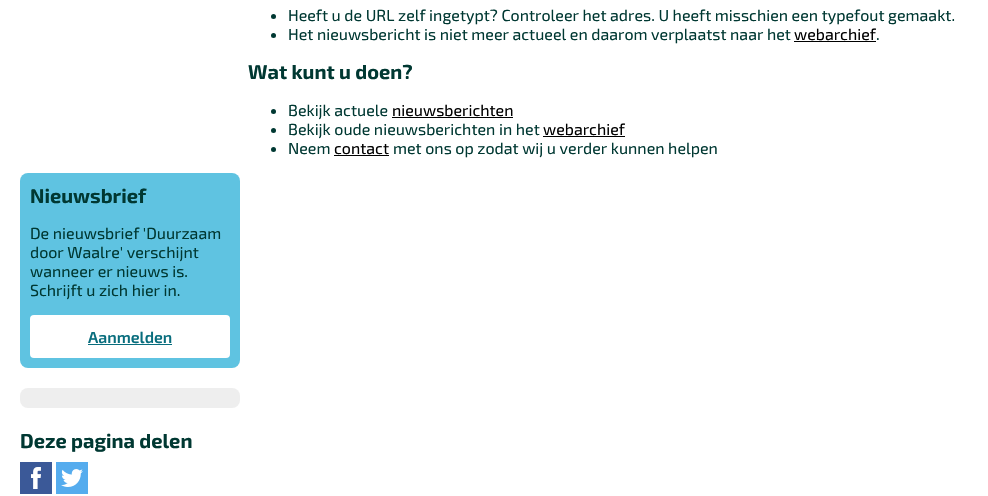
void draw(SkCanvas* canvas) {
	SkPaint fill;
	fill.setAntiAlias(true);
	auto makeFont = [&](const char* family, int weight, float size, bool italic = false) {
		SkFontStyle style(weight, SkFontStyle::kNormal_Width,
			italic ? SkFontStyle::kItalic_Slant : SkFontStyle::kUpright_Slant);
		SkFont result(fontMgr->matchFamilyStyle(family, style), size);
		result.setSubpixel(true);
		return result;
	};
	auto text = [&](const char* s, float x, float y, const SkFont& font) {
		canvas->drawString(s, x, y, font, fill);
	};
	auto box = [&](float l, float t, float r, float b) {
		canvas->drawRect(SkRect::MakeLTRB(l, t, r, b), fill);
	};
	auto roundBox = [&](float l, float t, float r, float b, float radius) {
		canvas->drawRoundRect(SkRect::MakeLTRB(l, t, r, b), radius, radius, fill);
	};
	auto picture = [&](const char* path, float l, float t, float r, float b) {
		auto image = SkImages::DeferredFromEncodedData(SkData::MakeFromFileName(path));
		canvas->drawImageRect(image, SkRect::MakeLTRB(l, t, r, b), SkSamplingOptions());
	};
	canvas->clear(0xFFFFFFFF);
	fill.setColor(0xFF003832);
	canvas->drawCircle(273.5f, 16.5f, 2.5f, fill);
	canvas->drawCircle(273.5f, 35.5f, 2.5f, fill);
	fill.setColor(0xFF000000);
	box(794, 41, 876, 42);
	fill.setColor(0xFF003832);
	canvas->drawCircle(273.5f, 111.5f, 2.5f, fill);
	fill.setColor(0xFF000000);
	box(392, 117, 513, 118);
	fill.setColor(0xFF003832);
	canvas->drawCircle(273.5f, 130.5f, 2.5f, fill);
	fill.setColor(0xFF000000);
	box(543, 136, 625, 137);
	fill.setColor(0xFF003832);
	canvas->drawCircle(273.5f, 149.5f, 2.5f, fill);
	fill.setColor(0xFF000000);
	box(334, 155, 389, 156);
	fill.setColor(0xFF5FC3E1);
	roundBox(20, 173, 240, 368, 8);
	fill.setColor(0xFFFFFFFF);
	roundBox(30, 315, 230, 358, 4);
	fill.setColor(0xFF086D7D);
	box(88, 344, 172, 345);
	fill.setColor(0xFFEEEEEE);
	roundBox(20, 388, 240, 408, 8);
	fill.setColor(0xFF3B5998);
	box(20, 462, 52, 494);
	picture("image0.png", 31, 467, 41, 489);
	fill.setColor(0xFF55ACEE);
	box(56, 462, 88, 494);
	picture("image1.png", 61, 469, 83, 487);
	auto font1 = makeFont("Exo 2", 400, 16);
	fill.setColor(0xFF003832);
	text("Heeft u de URL zelf ingetypt? Controleer het adres. U heeft misschien een typefout gemaakt.", 288, 21, font1);
	text("Het nieuwsbericht is niet meer actueel en daarom verplaatst naar het", 288, 40, font1);
	fill.setColor(0xFF000000);
	text("webarchief", 794, 40, font1);
	fill.setColor(0xFF003832);
	text(".", 876, 40, font1);
	auto font2 = makeFont("Exo 2", 700, 20);
	text("Wat kunt u doen?", 248, 79, font2);
	text("Bekijk actuele", 288, 116, font1);
	fill.setColor(0xFF000000);
	text("nieuwsberichten", 392, 116, font1);
	fill.setColor(0xFF003832);
	text("Bekijk oude nieuwsberichten in het", 288, 135, font1);
	fill.setColor(0xFF000000);
	text("webarchief", 543, 135, font1);
	fill.setColor(0xFF003832);
	text("Neem", 288, 154, font1);
	fill.setColor(0xFF000000);
	text("contact", 334, 154, font1);
	fill.setColor(0xFF003832);
	text("met ons op zodat wij u verder kunnen helpen", 393, 154, font1);
	text("Nieuwsbrief", 30, 203, font2);
	text("De nieuwsbrief 'Duurzaam", 30, 239, font1);
	text("door Waalre' verschijnt", 30, 258, font1);
	text("wanneer er nieuws is.", 30, 277, font1);
	text("Schrijft u zich hier in.", 30, 296, font1);
	auto font3 = makeFont("Exo 2", 600, 16);
	fill.setColor(0xFF086D7D);
	text("Aanmelden", 88, 343, font3);
	fill.setColor(0xFF003832);
	text("Deze pagina delen", 20, 448, font2);
}
